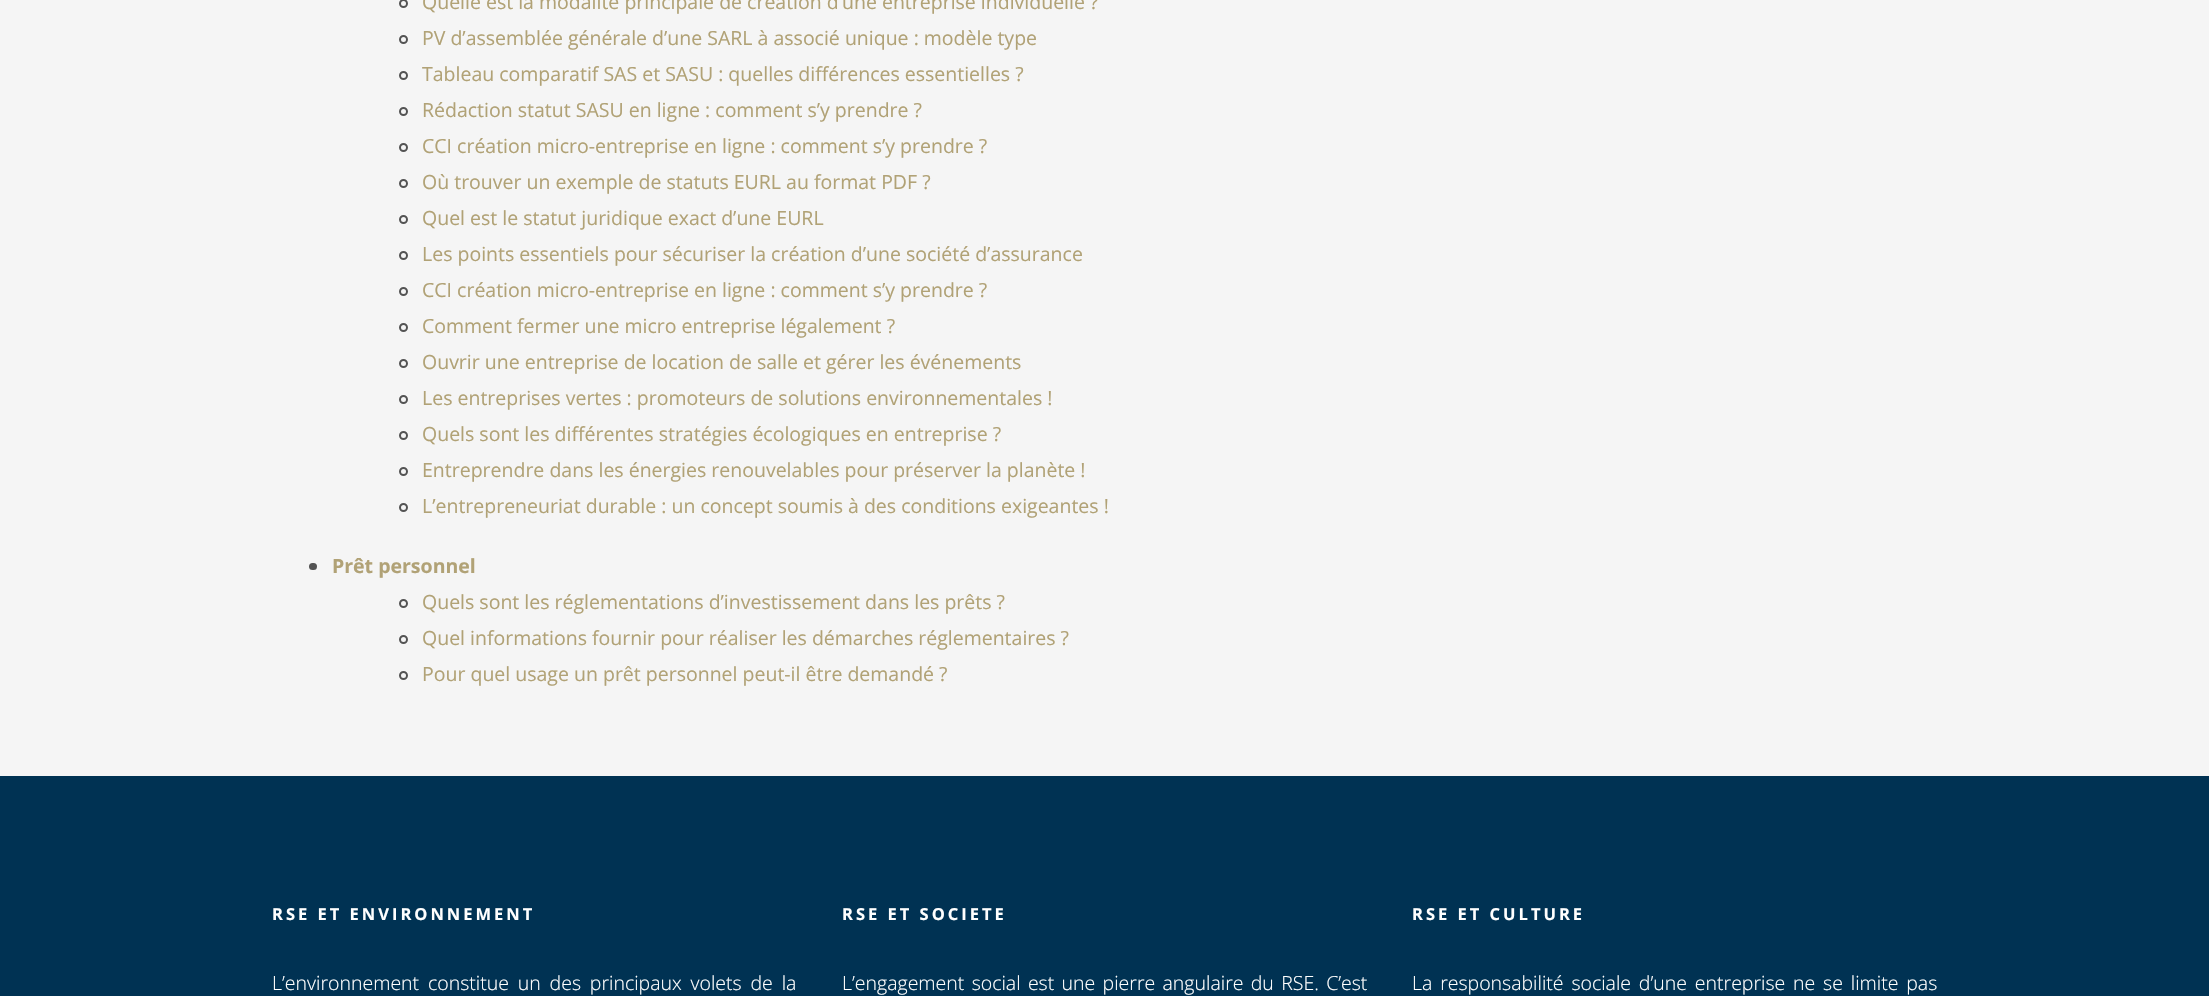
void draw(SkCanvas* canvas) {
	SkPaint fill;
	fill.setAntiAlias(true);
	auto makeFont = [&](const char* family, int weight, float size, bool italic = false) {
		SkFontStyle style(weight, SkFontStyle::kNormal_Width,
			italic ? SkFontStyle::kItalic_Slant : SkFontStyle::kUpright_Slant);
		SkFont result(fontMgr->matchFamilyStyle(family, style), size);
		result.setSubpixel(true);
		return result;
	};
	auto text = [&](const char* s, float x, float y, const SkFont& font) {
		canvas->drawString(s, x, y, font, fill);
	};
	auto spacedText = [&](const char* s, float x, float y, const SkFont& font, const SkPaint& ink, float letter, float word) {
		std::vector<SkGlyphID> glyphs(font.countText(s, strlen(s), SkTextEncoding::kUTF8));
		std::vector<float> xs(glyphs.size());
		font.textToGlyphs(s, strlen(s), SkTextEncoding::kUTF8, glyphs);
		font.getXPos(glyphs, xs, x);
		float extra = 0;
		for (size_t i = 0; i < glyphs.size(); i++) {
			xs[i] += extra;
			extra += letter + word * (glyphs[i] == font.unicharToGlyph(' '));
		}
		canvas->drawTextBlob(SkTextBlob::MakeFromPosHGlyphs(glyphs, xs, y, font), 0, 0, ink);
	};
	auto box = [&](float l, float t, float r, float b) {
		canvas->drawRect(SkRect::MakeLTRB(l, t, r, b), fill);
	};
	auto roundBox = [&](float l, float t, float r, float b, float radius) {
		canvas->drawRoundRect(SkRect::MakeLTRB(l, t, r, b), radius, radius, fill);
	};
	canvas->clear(0xFFF5F5F5);
	fill.setStyle(SkPaint::kStroke_Style);
	fill.setStrokeWidth(2);
	fill.setColor(0xFF535353);
	canvas->drawCircle(403.5f, 3.5f, 3.5f, fill);
	canvas->drawCircle(403.5f, 39.5f, 3.5f, fill);
	canvas->drawCircle(403.5f, 75.5f, 3.5f, fill);
	canvas->drawCircle(403.5f, 111.5f, 3.5f, fill);
	canvas->drawCircle(403.5f, 147.5f, 3.5f, fill);
	canvas->drawCircle(403.5f, 183.5f, 3.5f, fill);
	canvas->drawCircle(403.5f, 219.5f, 3.5f, fill);
	canvas->drawCircle(403.5f, 255.5f, 3.5f, fill);
	canvas->drawCircle(403.5f, 291.5f, 3.5f, fill);
	canvas->drawCircle(403.5f, 327.5f, 3.5f, fill);
	canvas->drawCircle(403.5f, 363.5f, 3.5f, fill);
	canvas->drawCircle(403.5f, 399.5f, 3.5f, fill);
	canvas->drawCircle(403.5f, 435.5f, 3.5f, fill);
	canvas->drawCircle(403.5f, 471.5f, 3.5f, fill);
	canvas->drawCircle(403.5f, 507.5f, 3.5f, fill);
	fill.setStyle(SkPaint::kFill_Style);
	roundBox(309, 563, 317, 570, 3.5f);
	fill.setStyle(SkPaint::kStroke_Style);
	canvas->drawCircle(403.5f, 603.5f, 3.5f, fill);
	canvas->drawCircle(403.5f, 639.5f, 3.5f, fill);
	canvas->drawCircle(403.5f, 675.5f, 3.5f, fill);
	fill.setStyle(SkPaint::kFill_Style);
	fill.setColor(0xFF003253);
	box(0, 776, 2209, 996);
	auto font1 = makeFont("Open Sans", 400, 19.5f);
	fill.setColor(0xFFB1A276);
	text("Quelle est la modalité principale de création d’une entreprise individuelle ?", 422, 9, font1);
	text("PV d’assemblée générale d’une SARL à associé unique : modèle type", 422, 45, font1);
	text("Tableau comparatif SAS et SASU : quelles différences essentielles ?", 422, 81, font1);
	text("Rédaction statut SASU en ligne : comment s’y prendre ?", 422, 117, font1);
	text("CCI création micro-entreprise en ligne : comment s’y prendre ?", 422, 153, font1);
	text("Où trouver un exemple de statuts EURL au format PDF ?", 422, 189, font1);
	text("Quel est le statut juridique exact d’une EURL", 422, 225, font1);
	text("Les points essentiels pour sécuriser la création d’une société d’assurance", 422, 261, font1);
	text("CCI création micro-entreprise en ligne : comment s’y prendre ?", 422, 297, font1);
	text("Comment fermer une micro entreprise légalement ?", 422, 333, font1);
	text("Ouvrir une entreprise de location de salle et gérer les événements", 422, 369, font1);
	text("Les entreprises vertes : promoteurs de solutions environnementales !", 422, 405, font1);
	text("Quels sont les différentes stratégies écologiques en entreprise ?", 422, 441, font1);
	text("Entreprendre dans les énergies renouvelables pour préserver la planète !", 422, 477, font1);
	text("L’entrepreneuriat durable : un concept soumis à des conditions exigeantes !", 422, 513, font1);
	auto font2 = makeFont("Open Sans", 700, 19.5f);
	text("Prêt personnel", 332, 573, font2);
	text("Quels sont les réglementations d’investissement dans les prêts ?", 422, 609, font1);
	text("Quel informations fournir pour réaliser les démarches réglementaires ?", 422, 645, font1);
	text("Pour quel usage un prêt personnel peut-il être demandé ?", 422, 681, font1);
	auto font3 = makeFont("Open Sans", 700, 16.5f);
	fill.setColor(0xFFFFFFFF);
	spacedText("RSE ET ENVIRONNEMENT", 272, 920, font3, fill, 3, 0);
	auto font4 = makeFont("Open Sans", 300, 19.5f);
	spacedText("L’environnement constitue un des principaux volets de la", 272, 990, font4, fill, 0, 3.75f);
	spacedText("RSE ET SOCIETE", 842, 920, font3, fill, 3, 0);
	spacedText("L’engagement social est une pierre angulaire du RSE. C’est", 842, 990, font4, fill, 0, 2.25f);
	spacedText("RSE ET CULTURE", 1412, 920, font3, fill, 3, 0);
	spacedText("La responsabilité sociale d’une entreprise ne se limite pas", 1412, 990, font4, fill, 0, 2.75f);
}
